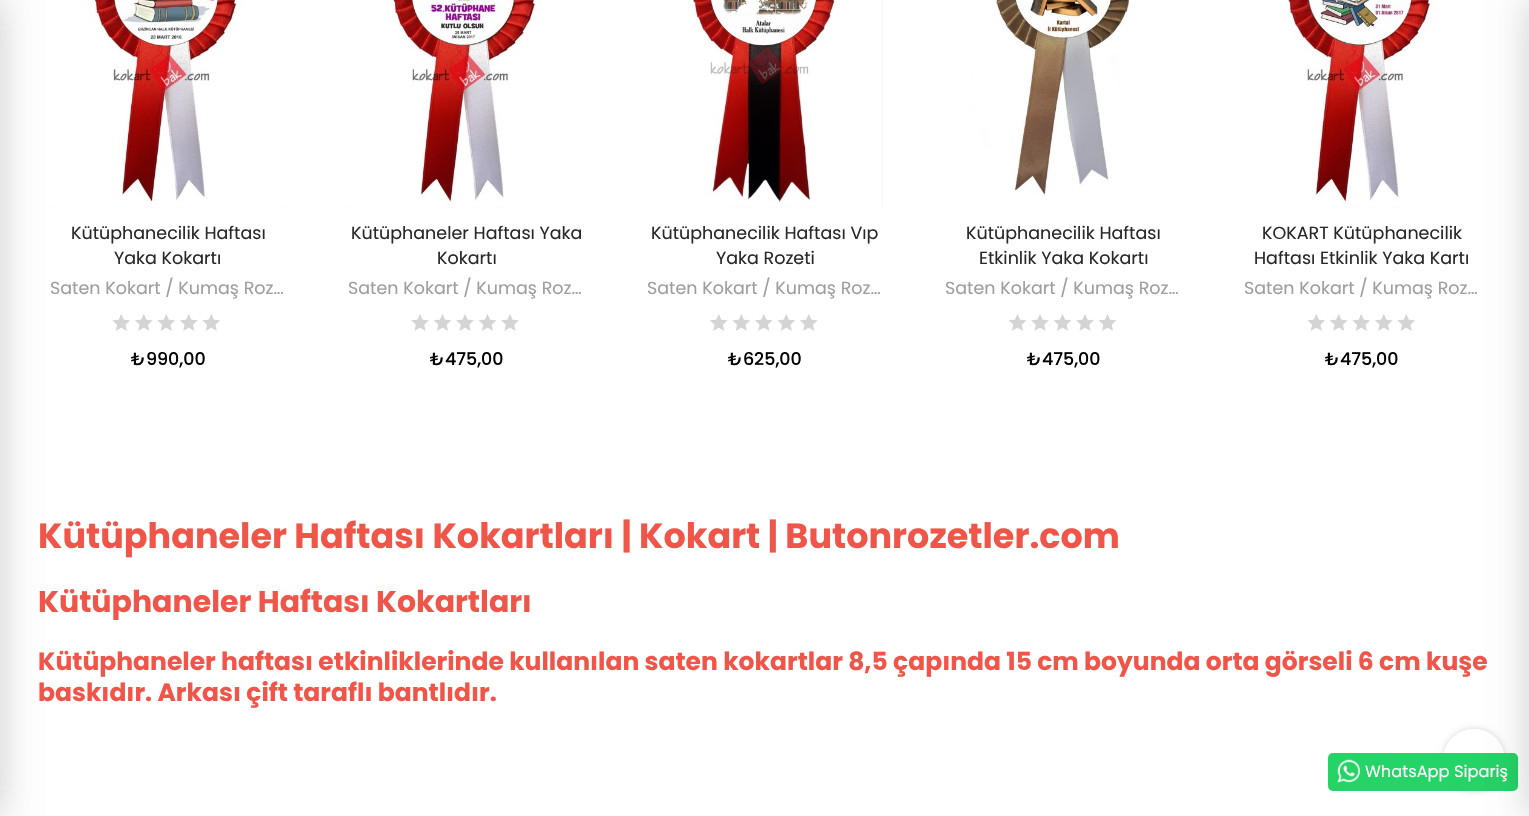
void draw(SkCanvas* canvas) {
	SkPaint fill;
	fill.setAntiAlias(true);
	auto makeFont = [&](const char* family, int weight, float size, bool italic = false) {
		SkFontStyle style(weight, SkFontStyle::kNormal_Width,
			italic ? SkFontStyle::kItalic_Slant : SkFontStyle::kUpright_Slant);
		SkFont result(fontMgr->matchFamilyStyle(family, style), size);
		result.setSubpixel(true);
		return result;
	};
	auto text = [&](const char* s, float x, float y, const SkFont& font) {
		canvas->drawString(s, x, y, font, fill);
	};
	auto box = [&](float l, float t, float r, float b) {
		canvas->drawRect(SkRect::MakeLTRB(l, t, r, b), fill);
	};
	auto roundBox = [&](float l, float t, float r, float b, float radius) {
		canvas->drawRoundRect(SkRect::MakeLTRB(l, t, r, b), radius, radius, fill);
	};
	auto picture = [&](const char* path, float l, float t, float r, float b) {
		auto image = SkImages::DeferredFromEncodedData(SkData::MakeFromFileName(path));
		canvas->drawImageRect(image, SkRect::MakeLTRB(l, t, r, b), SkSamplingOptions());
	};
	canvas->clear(0xFFFFFFFF);
	fill.setColor(0xFFF7F7F7);
	box(50, 207, 286, 208);
	picture("image0.png", 50, 0, 286, 208);
	fill.setColor(0x1A000000);
	fill.setMaskFilter(SkMaskFilter::MakeBlur(kNormal_SkBlurStyle, 19));
	canvas->drawRect(SkRect::MakeLTRB(-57, 0, 0, 816), fill);
	fill.setMaskFilter(nullptr);
	fill.setMaskFilter(SkMaskFilter::MakeBlur(kNormal_SkBlurStyle, 19));
	canvas->drawRect(SkRect::MakeLTRB(-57, 0, 0, 816), fill);
	fill.setMaskFilter(nullptr);
	fill.setColor(0xFFF7F7F7);
	box(1244, 207, 1480, 208);
	picture("image8.png", 1244, 0, 1480, 208);
	canvas->save();
	canvas->clipPath(SkPathBuilder(SkPathFillType::kEvenOdd).moveTo(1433, 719).lineTo(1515, 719).lineTo(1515, 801).lineTo(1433, 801).close().moveTo(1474, 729).cubicTo(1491, 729, 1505, 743, 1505, 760).cubicTo(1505, 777, 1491, 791, 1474, 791).cubicTo(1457, 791, 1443, 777, 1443, 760).cubicTo(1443, 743, 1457, 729, 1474, 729).close().detach(), true);
	fill.setColor(0x2B000000);
	fill.setMaskFilter(SkMaskFilter::MakeBlur(kNormal_SkBlurStyle, 3));
	canvas->drawRoundRect(SkRect::MakeLTRB(1443, 729, 1505, 791), 31, 31, fill);
	fill.setMaskFilter(nullptr);
	canvas->restore();
	fill.setColor(0xE6FFFFFF);
	canvas->drawCircle(1474, 760, 31, fill);
	fill.setColor(0xFF25D366);
	roundBox(1328, 753, 1518, 791, 5);
	fill.setColor(0x1A000000);
	fill.setMaskFilter(SkMaskFilter::MakeBlur(kNormal_SkBlurStyle, 19));
	canvas->drawRect(SkRect::MakeLTRB(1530, 0, 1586, 816), fill);
	fill.setMaskFilter(nullptr);
	picture("image1.png", 112, 314, 220, 331);
	fill.setColor(0xFFF7F7F7);
	box(349, 207, 585, 208);
	picture("image2.png", 349, 0, 585, 208);
	picture("image3.png", 411, 314, 519, 331);
	box(648, 0, 883, 208);
	picture("image4.png", 648, 0, 882, 208);
	picture("image5.png", 710, 314, 818, 331);
	box(945, 207, 1181, 208);
	picture("image6.png", 945, 0, 1181, 208);
	picture("image7.png", 1008, 314, 1117, 331);
	picture("image1.png", 1307, 314, 1415, 331);
	fill.setColor(0x1A000000);
	fill.setMaskFilter(SkMaskFilter::MakeBlur(kNormal_SkBlurStyle, 19));
	canvas->drawRect(SkRect::MakeLTRB(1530, 0, 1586, 816), fill);
	fill.setMaskFilter(nullptr);
	picture("image9.png", 1337, 759, 1360, 783);
	auto font1 = makeFont("Poppins", 400, 17.5f);
	fill.setColor(0xFF282828);
	text("Kütüphanecilik Haftası", 71, 239, font1);
	text("Yaka Kokartı", 114, 264, font1);
	fill.setColor(0xFF9E9E9E);
	text("Saten Kokart / Kumaş Roz…", 50, 294, font1);
	auto font2 = makeFont("Poppins", 500, 17.5f);
	fill.setColor(0xFF000000);
	text("₺990,00", 131, 365, font2);
	fill.setColor(0xFF282828);
	text("Kütüphaneler Haftası Yaka", 351, 239, font1);
	text("Kokartı", 437, 264, font1);
	fill.setColor(0xFF9E9E9E);
	text("Saten Kokart / Kumaş Roz…", 348, 294, font1);
	fill.setColor(0xFF000000);
	text("₺475,00", 430, 365, font2);
	fill.setColor(0xFF282828);
	text("Kütüphanecilik Haftası Vıp", 651, 239, font1);
	text("Yaka Rozeti", 716, 264, font1);
	fill.setColor(0xFF9E9E9E);
	text("Saten Kokart / Kumaş Roz…", 647, 294, font1);
	fill.setColor(0xFF000000);
	text("₺625,00", 728, 365, font2);
	fill.setColor(0xFF282828);
	text("Kütüphanecilik Haftası", 966, 239, font1);
	text("Etkinlik Yaka Kokartı", 979, 264, font1);
	fill.setColor(0xFF9E9E9E);
	text("Saten Kokart / Kumaş Roz…", 945, 294, font1);
	fill.setColor(0xFF000000);
	text("₺475,00", 1027, 365, font2);
	fill.setColor(0xFF282828);
	text("KOKART Kütüphanecilik", 1262, 239, font1);
	text("Haftası Etkinlik Yaka Kartı", 1254, 264, font1);
	fill.setColor(0xFF9E9E9E);
	text("Saten Kokart / Kumaş Roz…", 1244, 294, font1);
	fill.setColor(0xFF000000);
	text("₺475,00", 1325, 365, font2);
	auto font3 = makeFont("Poppins", 700, 35);
	fill.setColor(0xFFF05549);
	text("Kütüphaneler Haftası Kokartları | Kokart | Butonrozetler.com", 38, 548, font3);
	auto font4 = makeFont("Poppins", 700, 30);
	text("Kütüphaneler Haftası Kokartları", 38, 612, font4);
	auto font5 = makeFont("Poppins", 700, 25);
	text("Kütüphaneler haftası etkinliklerinde kullanılan saten kokartlar 8,5 çapında 15 cm boyunda orta görseli 6 cm kuşe", 38, 670, font5);
	text("baskıdır. Arkası çift taraflı bantlıdır.", 38, 701, font5);
	auto font6 = makeFont("Poppins", 400, 16.25f);
	fill.setColor(0xFFFFFFFF);
	text("WhatsApp Sipariş", 1365, 777, font6);
}
